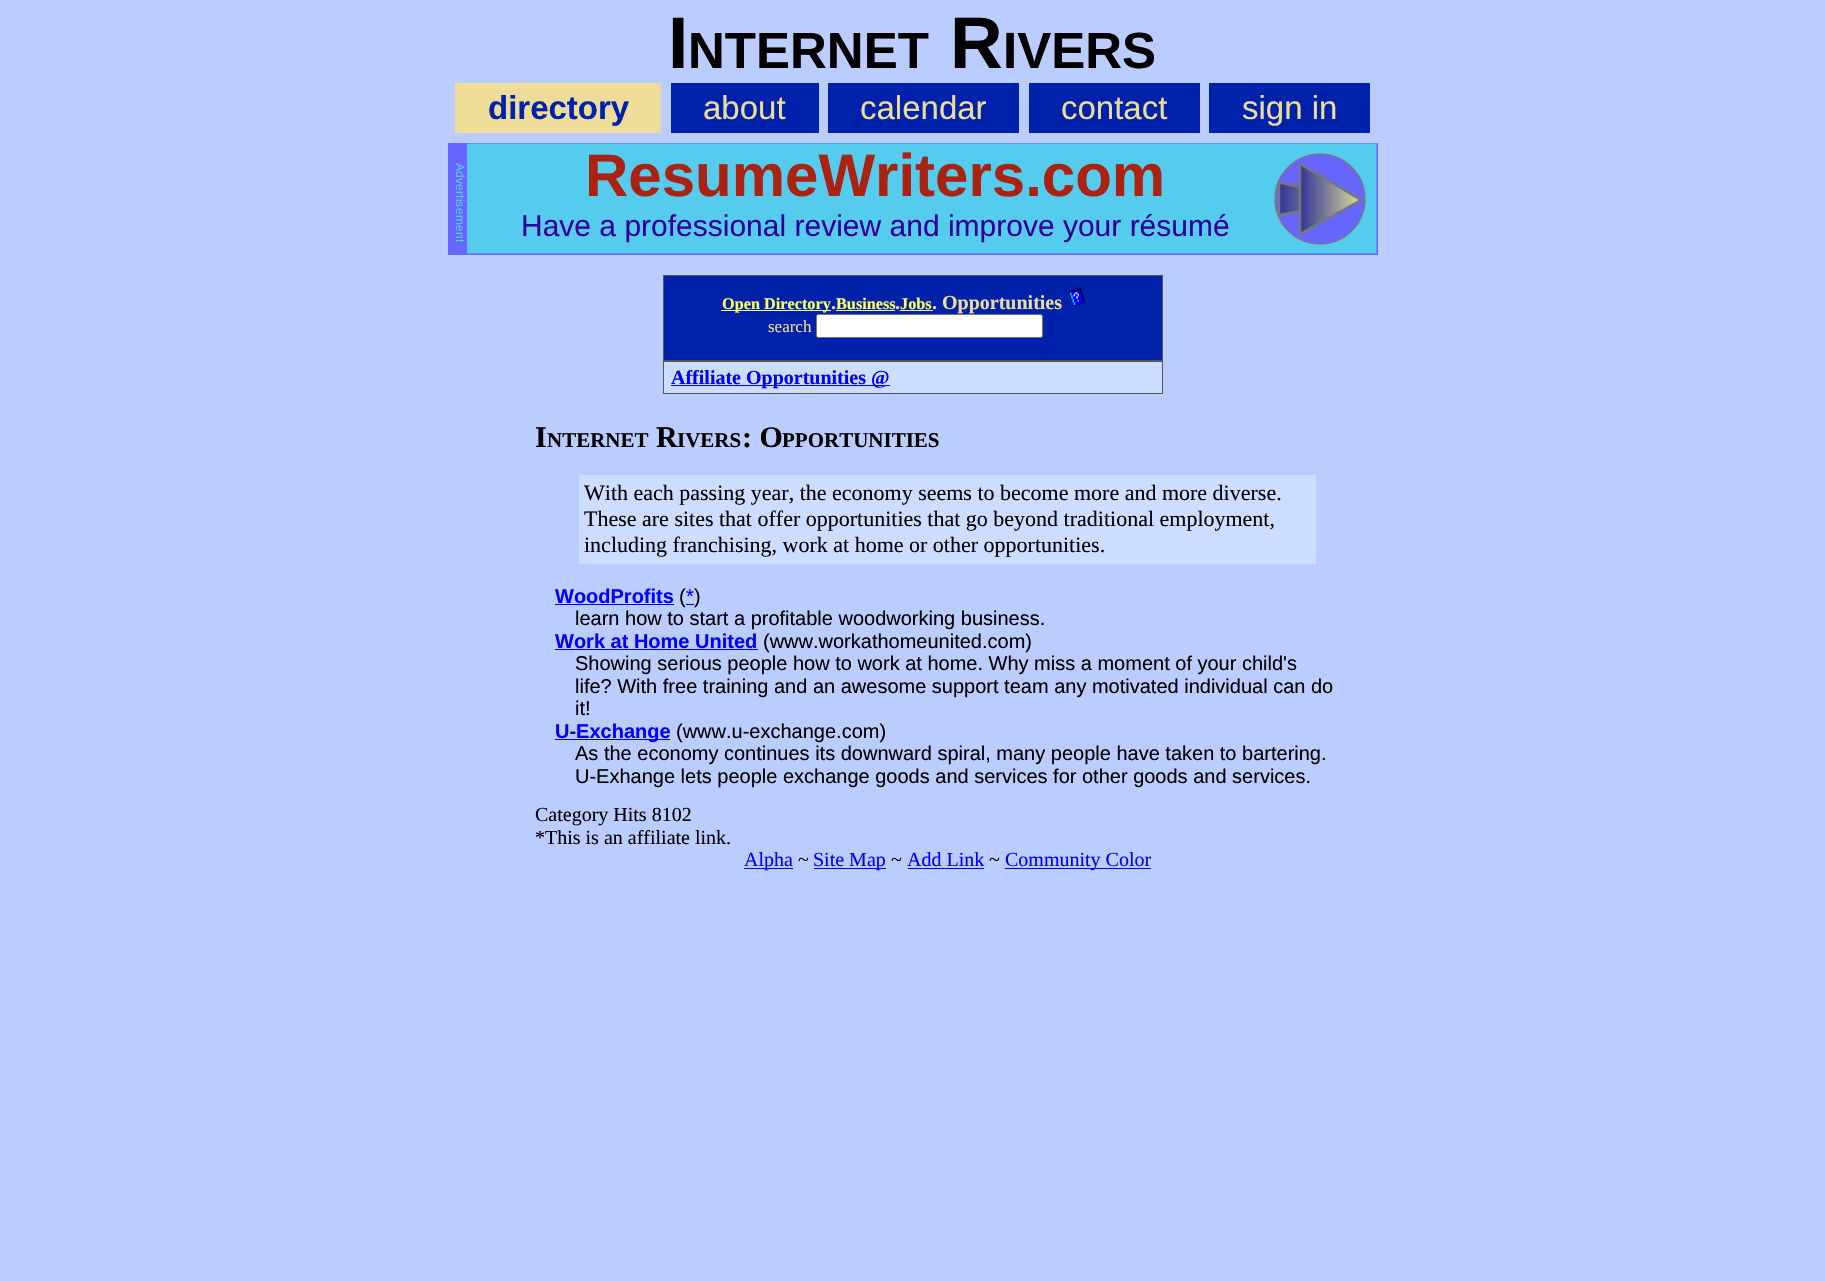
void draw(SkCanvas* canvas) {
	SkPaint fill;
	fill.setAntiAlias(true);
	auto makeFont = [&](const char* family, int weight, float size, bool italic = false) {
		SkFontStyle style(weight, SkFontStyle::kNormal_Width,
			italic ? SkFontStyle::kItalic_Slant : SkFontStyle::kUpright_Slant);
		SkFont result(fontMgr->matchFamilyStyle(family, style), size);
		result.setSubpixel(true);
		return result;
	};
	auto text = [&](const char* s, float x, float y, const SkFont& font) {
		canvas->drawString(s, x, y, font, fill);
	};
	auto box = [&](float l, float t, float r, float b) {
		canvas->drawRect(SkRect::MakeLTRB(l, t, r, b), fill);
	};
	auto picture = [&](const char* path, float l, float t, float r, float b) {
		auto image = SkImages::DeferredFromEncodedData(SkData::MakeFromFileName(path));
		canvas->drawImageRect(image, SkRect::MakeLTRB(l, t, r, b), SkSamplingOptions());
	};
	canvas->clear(0xFFBBCCFF);
	fill.setColor(0xFFEEDD99);
	box(455, 83, 661, 133);
	fill.setColor(0xFF0022AA);
	box(671, 83, 819, 133);
	box(828, 83, 1019, 133);
	box(1029, 83, 1200, 133);
	box(1209, 83, 1370, 133);
	fill.setColor(0xFF55CCEE);
	box(467, 143, 1377, 254);
	canvas->save();
	canvas->clipRect(SkRect::MakeLTRB(448, 143, 1378, 255));
	fill.setStyle(SkPaint::kStroke_Style);
	fill.setStrokeWidth(2.5f);
	fill.setColor(0xFF6666FF);
	canvas->drawRect(SkRect::MakeLTRB(447.25f, 142.25f, 1377.75f, 254.75f), fill);
	canvas->restore();
	fill.setStyle(SkPaint::kFill_Style);
	box(448, 143, 467, 254);
	canvas->drawCircle(1320, 199, 45, fill);
	fill.setStyle(SkPaint::kStroke_Style);
	fill.setStrokeWidth(1.2f);
	fill.setColor(0xFF777777);
	canvas->drawCircle(1320, 199, 45, fill);
	fill.setStyle(SkPaint::kFill_Style);
	{
		const SkColor colors[] = {0xFF333399, 0xFFDDDD99};
		const float stops[] = {0, 1};
		const SkPoint ends[] = {{1279, 183}, {1361, 183}};
		fill.setShader(SkGradientShader::MakeLinear(ends, colors, stops, 2, SkTileMode::kClamp));
		fill.setAlpha(255);
	}
	canvas->drawPath(SkPathBuilder().moveTo(1279, 182).lineTo(1279, 215).lineTo(1361, 200).close().detach(), fill);
	fill.setStyle(SkPaint::kStroke_Style);
	fill.setStrokeWidth(2.5f);
	fill.setShader(nullptr);
	fill.setColor(0xFF777777);
	canvas->drawPath(SkPathBuilder().moveTo(1279, 182.5f).lineTo(1279, 215).lineTo(1361, 200).close().detach(), fill);
	fill.setStyle(SkPaint::kFill_Style);
	{
		const SkColor colors[] = {0xFF333399, 0xFFDDDD99};
		const float stops[] = {0, 1};
		const SkPoint ends[] = {{1300, 164}, {1361, 164}};
		fill.setShader(SkGradientShader::MakeLinear(ends, colors, stops, 2, SkTileMode::kClamp));
		fill.setAlpha(255);
	}
	canvas->drawPath(SkPathBuilder().moveTo(1300, 164).lineTo(1300, 234).lineTo(1361, 200).close().detach(), fill);
	fill.setStyle(SkPaint::kStroke_Style);
	fill.setShader(nullptr);
	fill.setColor(0xFF777777);
	canvas->drawPath(SkPathBuilder().moveTo(1300, 164).lineTo(1300, 234).lineTo(1361, 200).close().detach(), fill);
	fill.setStyle(SkPaint::kFill_Style);
	fill.setColor(0xFF0022AA);
	canvas->drawRect(SkRect::MakeLTRB(663.5f, 275.5f, 1162.5f, 360.5f), fill);
	fill.setStyle(SkPaint::kStroke_Style);
	fill.setStrokeWidth(1);
	fill.setColor(0xFF555555);
	canvas->drawRect(SkRect::MakeLTRB(663.5f, 275.5f, 1162.5f, 360.5f), fill);
	fill.setStyle(SkPaint::kFill_Style);
	fill.setColor(0xFFFFFF55);
	box(721, 310, 831, 311);
	box(836, 310, 895, 311);
	box(900, 310, 933, 311);
	picture("image0.png", 1068, 288, 1086, 307);
	fill.setColor(0xFFFFFFFF);
	canvas->drawRoundRect(SkRect::MakeLTRB(816.5f, 314.5f, 1042.5f, 337.5f), 2, 2, fill);
	fill.setStyle(SkPaint::kStroke_Style);
	fill.setColor(0xFF767676);
	canvas->drawRoundRect(SkRect::MakeLTRB(816.5f, 314.5f, 1042.5f, 337.5f), 2, 2, fill);
	fill.setStyle(SkPaint::kFill_Style);
	fill.setColor(0xFFCCDDFF);
	canvas->drawRect(SkRect::MakeLTRB(663.5f, 361.5f, 1162.5f, 393.5f), fill);
	fill.setStyle(SkPaint::kStroke_Style);
	fill.setColor(0xFF555555);
	canvas->drawRect(SkRect::MakeLTRB(663.5f, 361.5f, 1162.5f, 393.5f), fill);
	fill.setStyle(SkPaint::kFill_Style);
	fill.setColor(0xFF0000FF);
	box(671, 385, 890, 386);
	fill.setColor(0xFFCCDDFF);
	box(579, 475, 1316, 564);
	fill.setColor(0xFF0000FF);
	box(555, 604, 674, 605);
	box(686, 604, 694, 605);
	box(555, 649, 758, 650);
	box(555, 739, 670, 740);
	box(744, 868, 793, 869);
	box(814, 868, 886, 869);
	box(908, 868, 984, 869);
	box(1005, 868, 1151, 869);
	auto font1 = makeFont("Liberation Sans", 700, 73);
	fill.setColor(0xFF000000);
	text("I", 668, 68, font1);
	auto font2 = makeFont("Liberation Sans", 700, 51);
	text("NTERNET", 688, 68, font2);
	text("R", 950, 68, font1);
	text("IVERS", 1003, 68, font2);
	auto font3 = makeFont("Liberation Sans", 700, 33);
	fill.setColor(0xFF0022AA);
	text("directory", 488, 119, font3);
	auto font4 = makeFont("Liberation Sans", 400, 33);
	fill.setColor(0xFFEEDD99);
	text("about", 703, 119, font4);
	text("calendar", 860, 119, font4);
	text("contact", 1061, 119, font4);
	text("sign in", 1242, 119, font4);
	auto font5 = makeFont("Liberation Sans", 400, 12);
	fill.setColor(0xFF55CCEE);
	canvas->save();
	canvas->rotate(90, 456, 163);
	text("A", 456, 163, font5);
	canvas->restore();
	auto font6 = makeFont("Liberation Sans", 700, 60);
	fill.setColor(0xFFAA2211);
	text("ResumeWriters.com", 585, 196, font6);
	fill.setColor(0xFF55CCEE);
	canvas->save();
	canvas->rotate(90, 456, 171);
	text("d", 456, 171, font5);
	canvas->restore();
	canvas->save();
	canvas->rotate(90, 456, 178);
	text("v", 456, 178, font5);
	canvas->restore();
	canvas->save();
	canvas->rotate(90, 456, 184);
	text("e", 456, 184, font5);
	canvas->restore();
	canvas->save();
	canvas->rotate(90, 456, 191);
	text("r", 456, 191, font5);
	canvas->restore();
	canvas->save();
	canvas->rotate(90, 456, 195);
	text("t", 456, 195, font5);
	canvas->restore();
	canvas->save();
	canvas->rotate(90, 456, 199);
	text("i", 456, 199, font5);
	canvas->restore();
	canvas->save();
	canvas->rotate(90, 456, 201);
	text("s", 456, 201, font5);
	canvas->restore();
	canvas->save();
	canvas->rotate(90, 456, 208);
	text("e", 456, 208, font5);
	canvas->restore();
	canvas->save();
	canvas->rotate(90, 456, 215);
	text("m", 456, 215, font5);
	canvas->restore();
	auto font7 = makeFont("Liberation Sans", 400, 30);
	fill.setColor(0xFF330099);
	text("Have a professional review and improve your résumé", 521, 236, font7);
	fill.setColor(0xFF55CCEE);
	canvas->save();
	canvas->rotate(90, 456, 225);
	text("e", 456, 225, font5);
	canvas->restore();
	canvas->save();
	canvas->rotate(90, 456, 232);
	text("n", 456, 232, font5);
	canvas->restore();
	canvas->save();
	canvas->rotate(90, 456, 239);
	text("t", 456, 239, font5);
	canvas->restore();
	auto font8 = makeFont("Liberation Serif", 700, 16.25f);
	fill.setColor(0xFFFFFF55);
	text("Open Directory", 722, 309, font8);
	auto font9 = makeFont("Liberation Serif", 700, 20);
	fill.setColor(0xFFEEDD99);
	text(".", 831, 309, font9);
	fill.setColor(0xFFFFFF55);
	text("Business", 836, 309, font8);
	fill.setColor(0xFFEEDD99);
	text(".", 895, 309, font9);
	fill.setColor(0xFFFFFF55);
	text("Jobs", 900, 309, font8);
	fill.setColor(0xFFEEDD99);
	text(". Opportunities", 932, 309, font9);
	auto font10 = makeFont("Liberation Serif", 400, 17);
	text("search", 768, 332, font10);
	fill.setColor(0xFF0000FF);
	text("Affiliate Opportunities @", 671, 384, font9);
	auto font11 = makeFont("Liberation Serif", 700, 30);
	fill.setColor(0xFF000000);
	text("I", 535, 447, font11);
	auto font12 = makeFont("Liberation Serif", 700, 21);
	text("NTERNET", 547, 447, font12);
	text("R", 656, 447, font11);
	text("IVERS", 677, 447, font12);
	text(": O", 742, 447, font11);
	text("PPORTUNITIES", 782, 447, font12);
	auto font13 = makeFont("Liberation Serif", 400, 22);
	text("With each passing year, the economy seems to become more and more diverse.", 584, 500, font13);
	text("These are sites that offer opportunities that go beyond traditional employment,", 584, 526, font13);
	text("including franchising, work at home or other opportunities.", 584, 552, font13);
	auto font14 = makeFont("Liberation Sans", 700, 20);
	fill.setColor(0xFF0000FF);
	text("WoodProfits", 555, 603, font14);
	auto font15 = makeFont("Liberation Sans", 400, 20);
	fill.setColor(0xFF000000);
	text("(", 679, 603, font15);
	fill.setColor(0xFF0000FF);
	text("*", 686, 603, font15);
	fill.setColor(0xFF000000);
	text(")", 694, 603, font15);
	text("learn how to start a profitable woodworking business.", 575, 625, font15);
	fill.setColor(0xFF0000FF);
	text("Work at Home United", 555, 648, font14);
	fill.setColor(0xFF000000);
	text("(www.workathomeunited.com)", 763, 648, font15);
	text("Showing serious people how to work at home. Why miss a moment of your child's", 575, 670, font15);
	text("life? With free training and an awesome support team any motivated individual can do", 575, 693, font15);
	text("it!", 575, 715, font15);
	fill.setColor(0xFF0000FF);
	text("U-Exchange", 555, 738, font14);
	fill.setColor(0xFF000000);
	text("(www.u-exchange.com)", 676, 738, font15);
	text("As the economy continues its downward spiral, many people have taken to bartering.", 575, 760, font15);
	text("U-Exhange lets people exchange goods and services for other goods and services.", 575, 783, font15);
	auto font16 = makeFont("Liberation Serif", 400, 20);
	text("Category Hits 8102", 535, 821, font16);
	text("*This is an affiliate link.", 535, 844, font16);
	fill.setColor(0xFF0000FF);
	text("Alpha", 744, 866, font16);
	fill.setColor(0xFF000000);
	text("~", 798, 866, font16);
	fill.setColor(0xFF0000FF);
	text("Site Map", 813, 866, font16);
	fill.setColor(0xFF000000);
	text("~", 891, 866, font16);
	fill.setColor(0xFF0000FF);
	text("Add Link", 907, 866, font16);
	fill.setColor(0xFF000000);
	text("~", 989, 866, font16);
	fill.setColor(0xFF0000FF);
	text("Community Color", 1005, 866, font16);
}
